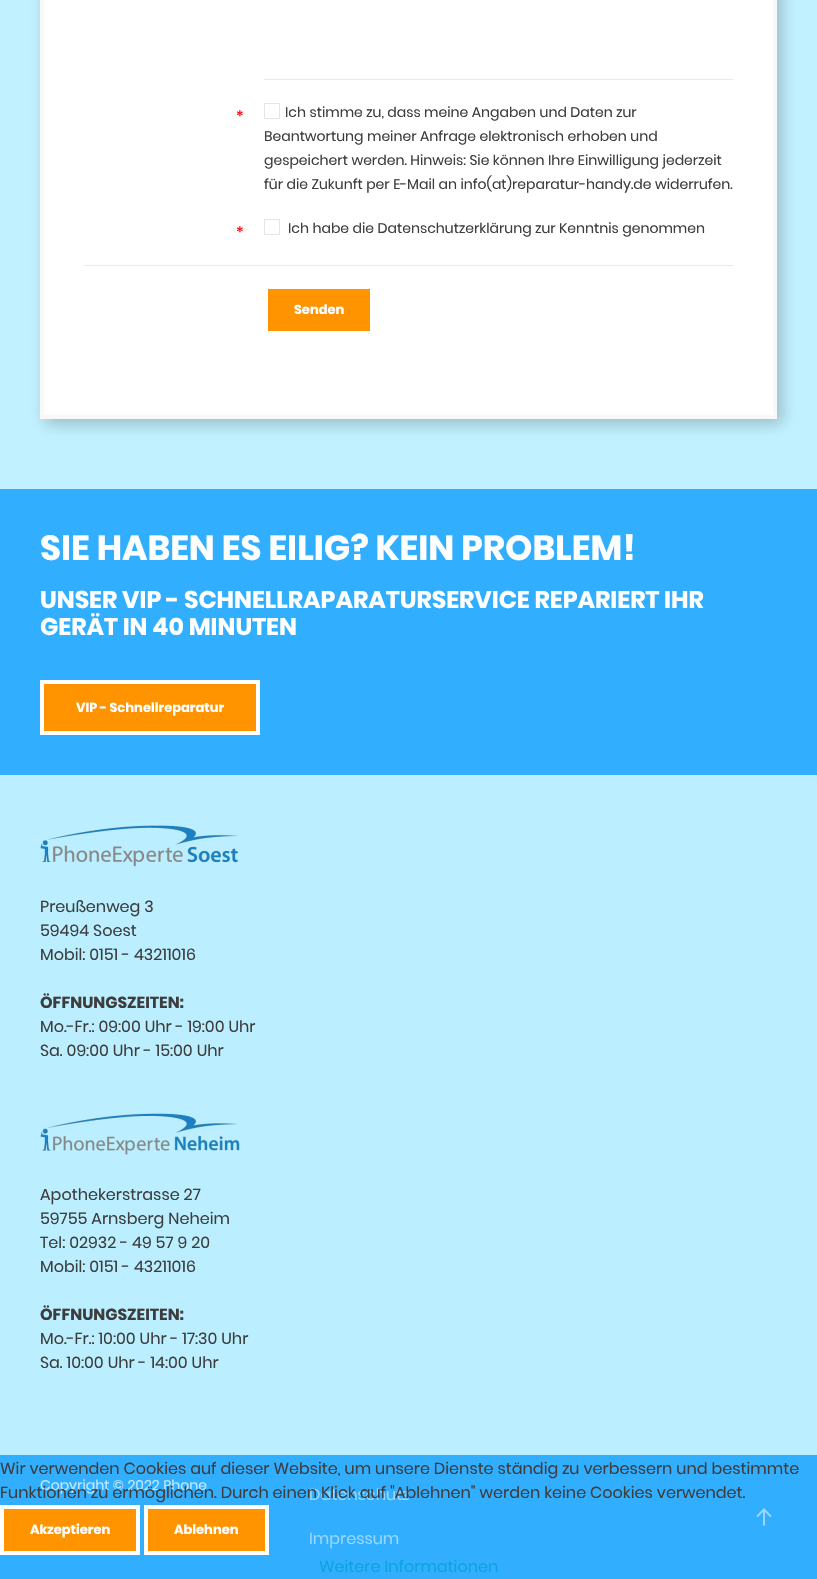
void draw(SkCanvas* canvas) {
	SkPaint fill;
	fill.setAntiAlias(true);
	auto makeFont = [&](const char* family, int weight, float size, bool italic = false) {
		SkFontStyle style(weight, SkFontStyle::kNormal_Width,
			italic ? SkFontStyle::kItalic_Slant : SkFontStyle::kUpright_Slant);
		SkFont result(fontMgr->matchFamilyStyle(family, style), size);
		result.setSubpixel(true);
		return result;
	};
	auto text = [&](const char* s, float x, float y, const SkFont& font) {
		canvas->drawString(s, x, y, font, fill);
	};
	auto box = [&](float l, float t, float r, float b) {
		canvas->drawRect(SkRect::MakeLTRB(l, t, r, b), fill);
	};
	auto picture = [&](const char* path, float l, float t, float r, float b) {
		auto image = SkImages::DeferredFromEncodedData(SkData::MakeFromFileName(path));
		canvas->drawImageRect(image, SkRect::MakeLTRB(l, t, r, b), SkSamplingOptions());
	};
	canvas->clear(0xFF32AEFF);
	fill.setColor(0xFFC1F1FF);
	box(0, 0, 817, 489);
	fill.setColor(0x3D0F0F0F);
	fill.setMaskFilter(SkMaskFilter::MakeBlur(kNormal_SkBlurStyle, 7.5f));
	canvas->drawRect(SkRect::MakeLTRB(45, -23, 782, 424), fill);
	fill.setMaskFilter(nullptr);
	fill.setColor(0xFFFFFFFF);
	canvas->drawRect(SkRect::MakeLTRB(42, -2, 775, 417), fill);
	fill.setStyle(SkPaint::kStroke_Style);
	fill.setStrokeWidth(4);
	fill.setColor(0xFFF8F8F8);
	canvas->drawRect(SkRect::MakeLTRB(42, -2, 775, 417), fill);
	fill.setStyle(SkPaint::kFill_Style);
	fill.setColor(0xFFEAEAEA);
	box(264, 79, 733, 80);
	fill.setStyle(SkPaint::kStroke_Style);
	fill.setStrokeWidth(1);
	fill.setColor(0xFFE5E5E5);
	canvas->drawRect(SkRect::MakeLTRB(264.5f, 103.5f, 279.5f, 118.5f), fill);
	canvas->drawRect(SkRect::MakeLTRB(264.5f, 219.5f, 279.5f, 234.5f), fill);
	fill.setStyle(SkPaint::kFill_Style);
	fill.setColor(0xFFEAEAEA);
	box(84, 265, 733, 266);
	fill.setColor(0xFFFF9300);
	box(268, 289, 370, 331);
	canvas->drawRect(SkRect::MakeLTRB(42, 682, 258, 733), fill);
	fill.setStyle(SkPaint::kStroke_Style);
	fill.setStrokeWidth(4);
	fill.setColor(0xFFFFFFFF);
	canvas->drawRect(SkRect::MakeLTRB(42, 682, 258, 733), fill);
	fill.setStyle(SkPaint::kFill_Style);
	fill.setColor(0xFFBBEFFF);
	box(0, 775, 817, 1455);
	picture("image0.png", 40, 825, 238, 867);
	picture("image1.png", 40, 1113, 240, 1155);
	picture("image2.png", 756, 1508, 772, 1526);
	fill.setColor(0xFFFF9300);
	canvas->drawRect(SkRect::MakeLTRB(2, 1507, 138, 1553), fill);
	fill.setStyle(SkPaint::kStroke_Style);
	fill.setColor(0xFFFFFFFF);
	canvas->drawRect(SkRect::MakeLTRB(2, 1507, 138, 1553), fill);
	fill.setStyle(SkPaint::kFill_Style);
	fill.setColor(0xFFFF9300);
	canvas->drawRect(SkRect::MakeLTRB(146, 1507, 267, 1553), fill);
	fill.setStyle(SkPaint::kStroke_Style);
	fill.setColor(0xFFFFFFFF);
	canvas->drawRect(SkRect::MakeLTRB(146, 1507, 267, 1553), fill);
	auto font1 = makeFont("Poppins", 400, 16);
	fill.setStyle(SkPaint::kFill_Style);
	fill.setColor(0xFFFF0000);
	text("*", 236, 122, font1);
	auto font2 = makeFont("Poppins", 400, 14);
	fill.setColor(0xFF3D3D3D);
	text("Ich stimme zu, dass meine Angaben und Daten zur", 285, 117, font2);
	text("Beantwortung meiner Anfrage elektronisch erhoben und", 264, 141, font2);
	text("gespeichert werden. Hinweis: Sie können Ihre Einwilligung jederzeit", 264, 165, font2);
	text("für die Zukunft per E-Mail an info(at)reparatur-handy.de widerrufen.", 264, 189, font2);
	fill.setColor(0xFFFF0000);
	text("*", 236, 238, font1);
	fill.setColor(0xFF3D3D3D);
	text("Ich habe die Datenschutzerklärung zur Kenntnis genommen", 288, 233, font2);
	auto font3 = makeFont("Poppins", 700, 13);
	fill.setColor(0xFFFFFFFF);
	text("Senden", 294, 314, font3);
	auto font4 = makeFont("Poppins", 700, 34.8f);
	text("SIE HABEN ES EILIG? KEIN PROBLEM!", 40, 560, font4);
	auto font5 = makeFont("Poppins", 700, 24);
	text("UNSER VIP - SCHNELLRAPARATURSERVICE REPARIERT IHR", 40, 608, font5);
	text("GERÄT IN 40 MINUTEN", 40, 635, font5);
	text("VIP - Schnellreparatur", 76, 712, font3);
	fill.setColor(0xFF3D3D3D);
	text("Preußenweg 3", 40, 912, font1);
	text("59494 Soest", 40, 936, font1);
	text("Mobil: 0151 - 43211016", 40, 960, font1);
	auto font6 = makeFont("Poppins", 700, 16);
	text("ÖFFNUNGSZEITEN:", 40, 1008, font6);
	text("Mo.-Fr.: 09:00 Uhr - 19:00 Uhr", 40, 1032, font1);
	text("Sa. 09:00 Uhr - 15:00 Uhr", 40, 1056, font1);
	text("Apothekerstrasse 27", 40, 1200, font1);
	text("59755 Arnsberg Neheim", 40, 1224, font1);
	text("Tel: 02932 - 49 57 9 20", 40, 1248, font1);
	text("Mobil: 0151 - 43211016", 40, 1272, font1);
	text("ÖFFNUNGSZEITEN:", 40, 1320, font6);
	text("Mo.-Fr.: 10:00 Uhr - 17:30 Uhr", 40, 1344, font1);
	text("Sa. 10:00 Uhr - 14:00 Uhr", 40, 1368, font1);
	fill.setColor(0xFFC2E7FF);
	text("Copyright © 2022 Phone", 40, 1490, font2);
	fill.setColor(0xFF99D7FF);
	text("Datenschutz", 309, 1500, font1);
	text("Impressum", 309, 1544, font1);
	fill.setColor(0xFF3D3D3D);
	text("Wir verwenden Cookies auf dieser Website, um unsere Dienste ständig zu verbessern und bestimmte", 0, 1474, font1);
	text("Funktionen zu ermöglichen. Durch einen Klick auf \"Ablehnen\" werden keine Cookies verwendet.", 0, 1498, font1);
	fill.setColor(0xFFFFFFFF);
	text("Akzeptieren", 30, 1534, font3);
	text("Ablehnen", 174, 1534, font3);
	fill.setColor(0xFF09A5DC);
	text("Weitere Informationen", 319, 1572, font1);
}
